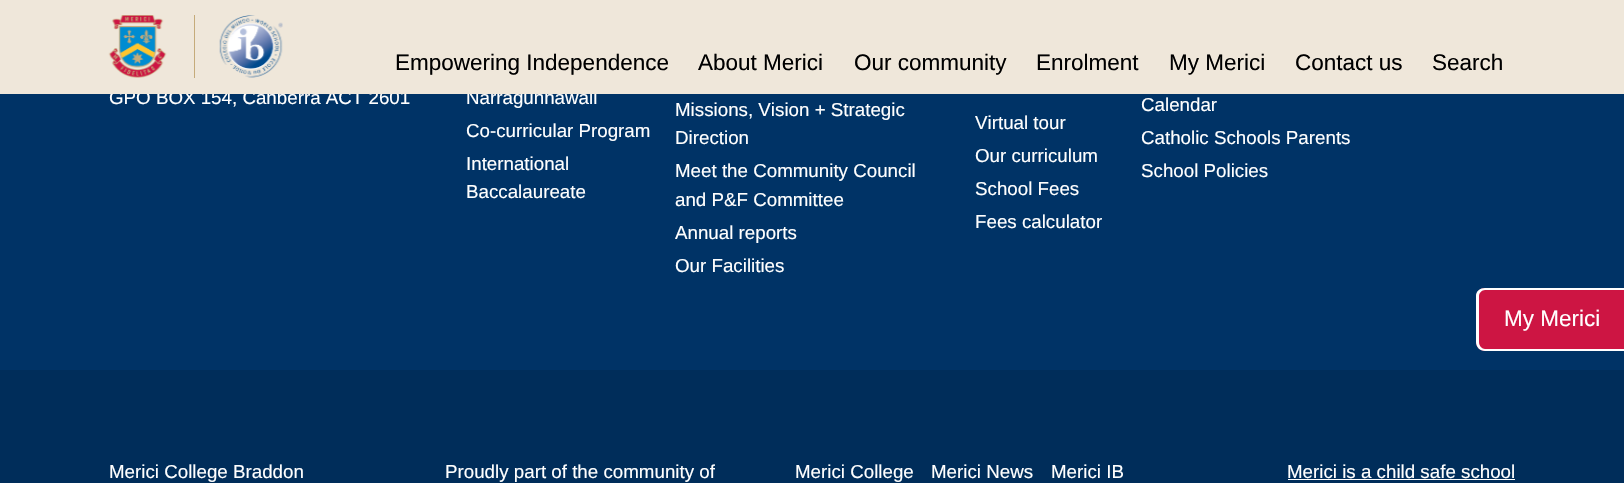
void draw(SkCanvas* canvas) {
	SkPaint fill;
	fill.setAntiAlias(true);
	auto makeFont = [&](const char* family, int weight, float size, bool italic = false) {
		SkFontStyle style(weight, SkFontStyle::kNormal_Width,
			italic ? SkFontStyle::kItalic_Slant : SkFontStyle::kUpright_Slant);
		SkFont result(fontMgr->matchFamilyStyle(family, style), size);
		result.setSubpixel(true);
		return result;
	};
	auto text = [&](const char* s, float x, float y, const SkFont& font) {
		canvas->drawString(s, x, y, font, fill);
	};
	auto box = [&](float l, float t, float r, float b) {
		canvas->drawRect(SkRect::MakeLTRB(l, t, r, b), fill);
	};
	auto picture = [&](const char* path, float l, float t, float r, float b) {
		auto image = SkImages::DeferredFromEncodedData(SkData::MakeFromFileName(path));
		canvas->drawImageRect(image, SkRect::MakeLTRB(l, t, r, b), SkSamplingOptions());
	};
	canvas->clear(0xFF003366);
	fill.setColor(0xFFCD1543);
	canvas->drawPath(SkPathBuilder().moveTo(1485, 288).lineTo(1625, 288).lineTo(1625, 351).lineTo(1485, 351).cubicTo(1480, 351, 1476, 347, 1476, 342).lineTo(1476, 297).cubicTo(1476, 292, 1480, 288, 1485, 288).close().detach(), fill);
	fill.setColor(0xFFFFFFFF);
	canvas->drawPath(SkPathBuilder(SkPathFillType::kEvenOdd).moveTo(1485, 288).lineTo(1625, 288).lineTo(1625, 351).lineTo(1485, 351).cubicTo(1480, 351, 1476, 347, 1476, 342).lineTo(1476, 296).cubicTo(1476, 291, 1480, 288, 1485, 288).close().moveTo(1485, 290).lineTo(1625, 290).lineTo(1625, 349).lineTo(1485, 349).cubicTo(1482, 349, 1479, 346, 1479, 342).lineTo(1479, 296).cubicTo(1479, 293, 1482, 290, 1485, 290).close().detach(), fill);
	fill.setColor(0xFF002D5A);
	box(0, 370, 1624, 483);
	fill.setColor(0xFFFFFFFF);
	box(1288, 479, 1515, 480);
	auto font1 = makeFont("Liberation Sans", 400, 22.5f);
	text("My Merici", 1504, 326, font1);
	auto font2 = makeFont("Liberation Sans", 400, 18.75f);
	text("GPO BOX 154, Canberra ACT 2601", 109, 104, font2);
	text("Narragunnawali", 466, 104, font2);
	fill.setColor(0xFFEFE7DA);
	box(0, 0, 1624, 94);
	fill.setColor(0xFF000000);
	text("Search", 1432, 70, font1);
	text("Contact us", 1295, 70, font1);
	text("My Merici", 1169, 70, font1);
	text("Enrolment", 1036, 70, font1);
	text("Our community", 854, 70, font1);
	text("About Merici", 698, 70, font1);
	text("Empowering Independence", 395, 70, font1);
	picture("image1.png", 219, 15, 283, 78);
	fill.setColor(0xFFC5AB7A);
	box(194, 15, 195, 78);
	picture("image0.png", 108, 15, 167, 78);
	fill.setColor(0xFFFFFFFF);
	text("Co-curricular Program", 466, 137, font2);
	text("International", 466, 170, font2);
	text("Baccalaureate", 466, 198, font2);
	text("Missions, Vision + Strategic", 675, 116, font2);
	text("Direction", 675, 144, font2);
	text("Meet the Community Council", 675, 177, font2);
	text("and P&F Committee", 675, 206, font2);
	text("Annual reports", 675, 239, font2);
	text("Our Facilities", 675, 272, font2);
	text("Virtual tour", 975, 129, font2);
	text("Our curriculum", 975, 162, font2);
	text("School Fees", 975, 195, font2);
	text("Fees calculator", 975, 228, font2);
	text("Calendar", 1141, 111, font2);
	text("Catholic Schools Parents", 1141, 144, font2);
	text("School Policies", 1141, 177, font2);
	text("Merici College Braddon", 109, 478, font2);
	text("Proudly part of the community of", 445, 478, font2);
	text("Merici College", 795, 478, font2);
	text("Merici News", 931, 478, font2);
	text("Merici IB", 1051, 478, font2);
	text("Merici is a child safe school", 1287, 478, font2);
}
